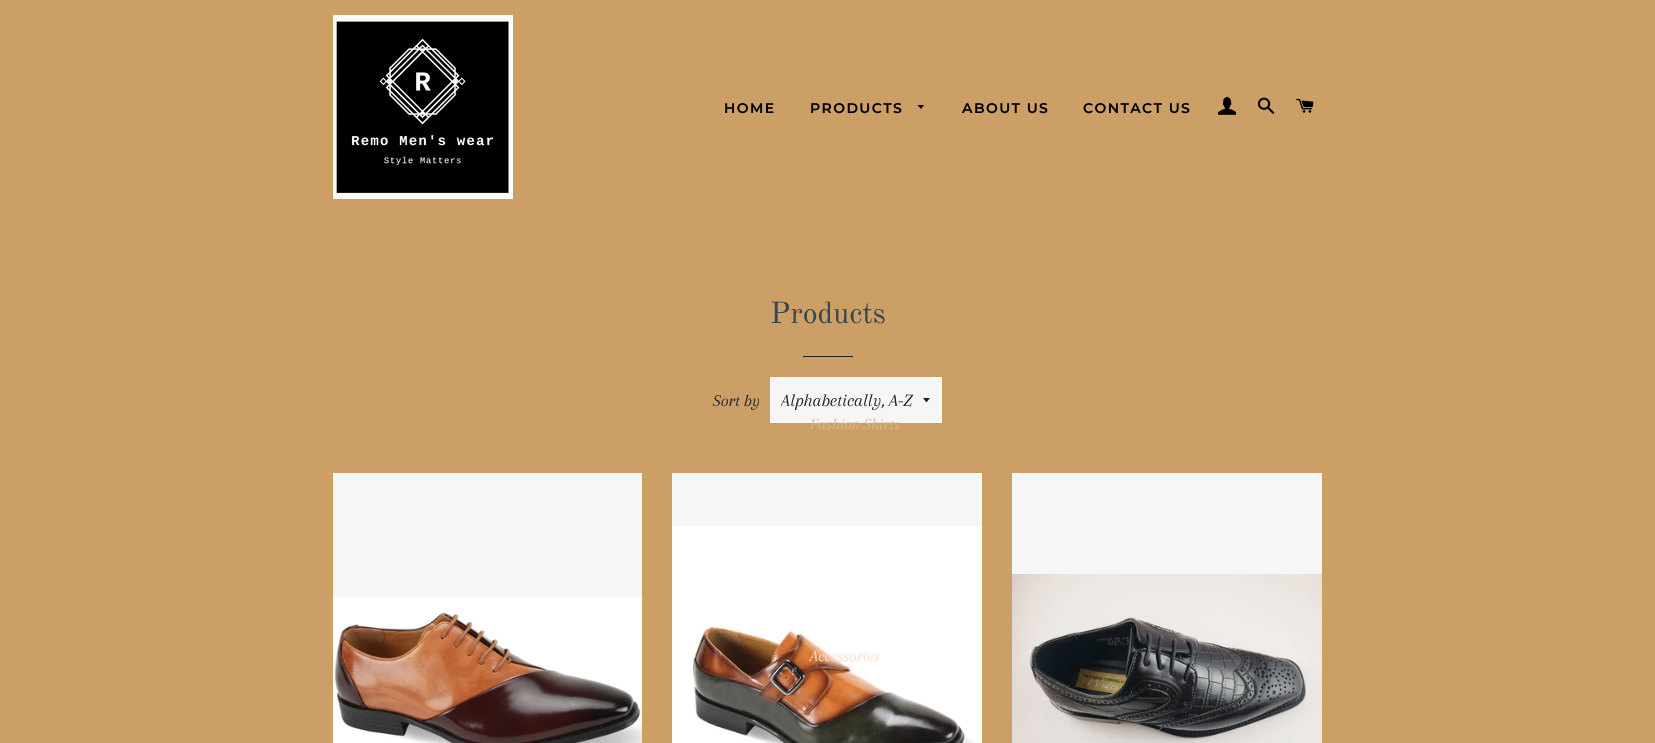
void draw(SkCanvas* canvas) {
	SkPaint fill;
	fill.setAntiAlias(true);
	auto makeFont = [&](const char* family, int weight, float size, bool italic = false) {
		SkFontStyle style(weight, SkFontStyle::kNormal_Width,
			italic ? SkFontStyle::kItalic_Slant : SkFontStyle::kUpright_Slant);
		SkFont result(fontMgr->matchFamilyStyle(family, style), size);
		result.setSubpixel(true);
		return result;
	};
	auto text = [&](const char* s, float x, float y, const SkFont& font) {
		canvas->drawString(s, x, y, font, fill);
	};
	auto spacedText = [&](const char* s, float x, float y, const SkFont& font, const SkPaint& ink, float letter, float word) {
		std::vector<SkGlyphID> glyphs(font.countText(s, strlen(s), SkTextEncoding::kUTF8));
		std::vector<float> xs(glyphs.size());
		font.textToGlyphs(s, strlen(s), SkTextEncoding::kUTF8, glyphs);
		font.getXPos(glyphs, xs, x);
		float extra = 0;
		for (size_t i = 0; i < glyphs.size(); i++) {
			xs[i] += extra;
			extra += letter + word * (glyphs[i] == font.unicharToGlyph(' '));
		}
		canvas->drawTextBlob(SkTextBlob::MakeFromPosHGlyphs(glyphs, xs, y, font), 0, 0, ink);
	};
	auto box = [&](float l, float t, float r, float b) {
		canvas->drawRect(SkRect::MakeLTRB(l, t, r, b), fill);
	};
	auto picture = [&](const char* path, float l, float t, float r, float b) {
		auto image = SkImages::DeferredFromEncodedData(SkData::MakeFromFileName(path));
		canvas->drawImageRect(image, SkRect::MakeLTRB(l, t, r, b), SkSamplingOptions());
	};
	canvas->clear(0xFFCB9F66);
	picture("image0.png", 333, 15, 513, 199);
	fill.setColor(0xFF000000);
	canvas->drawPath(SkPathBuilder().moveTo(917.5f, 105).lineTo(921, 109).lineTo(924, 105).close().detach(), fill);
	picture("image1.png", 1218, 96, 1237, 115);
	picture("image2.png", 1257, 97, 1275, 114);
	picture("image3.png", 1296, 98, 1314, 113);
	fill.setColor(0xFF1F2021);
	box(803, 356, 853, 357);
	fill.setColor(0xFFF6F6F6);
	box(770, 377, 942, 423);
	fill.setColor(0xFF1F2021);
	canvas->drawPath(SkPathBuilder().moveTo(923, 398).cubicTo(927.5f, 403.5f, 925.5f, 403.5f, 930, 398).close().detach(), fill);
	fill.setColor(0xFFF6F6F6);
	box(333, 473, 642, 597);
	picture("image4.png", 333, 597, 642, 743);
	box(672, 473, 982, 526);
	picture("image5.png", 672, 526, 982, 743);
	box(1012, 473, 1322, 574);
	picture("image6.png", 1012, 574, 1322, 743);
	auto font1 = makeFont("Montserrat", 600, 14);
	fill.setColor(0xFF000000);
	spacedText("HOME", 724, 113, font1, fill, 1.4f, 0);
	spacedText("PRODUCTS", 810, 113, font1, fill, 1.4f, 0);
	auto font2 = makeFont("Arapey", 400, 16, true);
	fill.setColor(0xFFD8B990);
	text("Fashion Shirts", 810, 429, font2);
	fill.setColor(0xFFF5DECF);
	text("Accessories", 810, 661, font2);
	fill.setColor(0xFF000000);
	spacedText("ABOUT US", 962, 113, font1, fill, 1.4f, 0);
	spacedText("CONTACT US", 1083, 113, font1, fill, 1.4f, 0);
	auto font3 = makeFont("Old Standard TT", 400, 30);
	fill.setColor(0xFF3A454F);
	text("Products", 770, 323, font3);
	auto font4 = makeFont("Arapey", 400, 17, true);
	fill.setColor(0xFF1F2021);
	text("Sort by", 713, 406, font4);
	canvas->save();
	canvas->clipRect(SkRect::MakeLTRB(781, 386, 913, 414));
	auto font5 = makeFont("Arapey", 400, 18, true);
	text("Alphabetically, A-Z", 781, 406, font5);
	canvas->restore();
}
